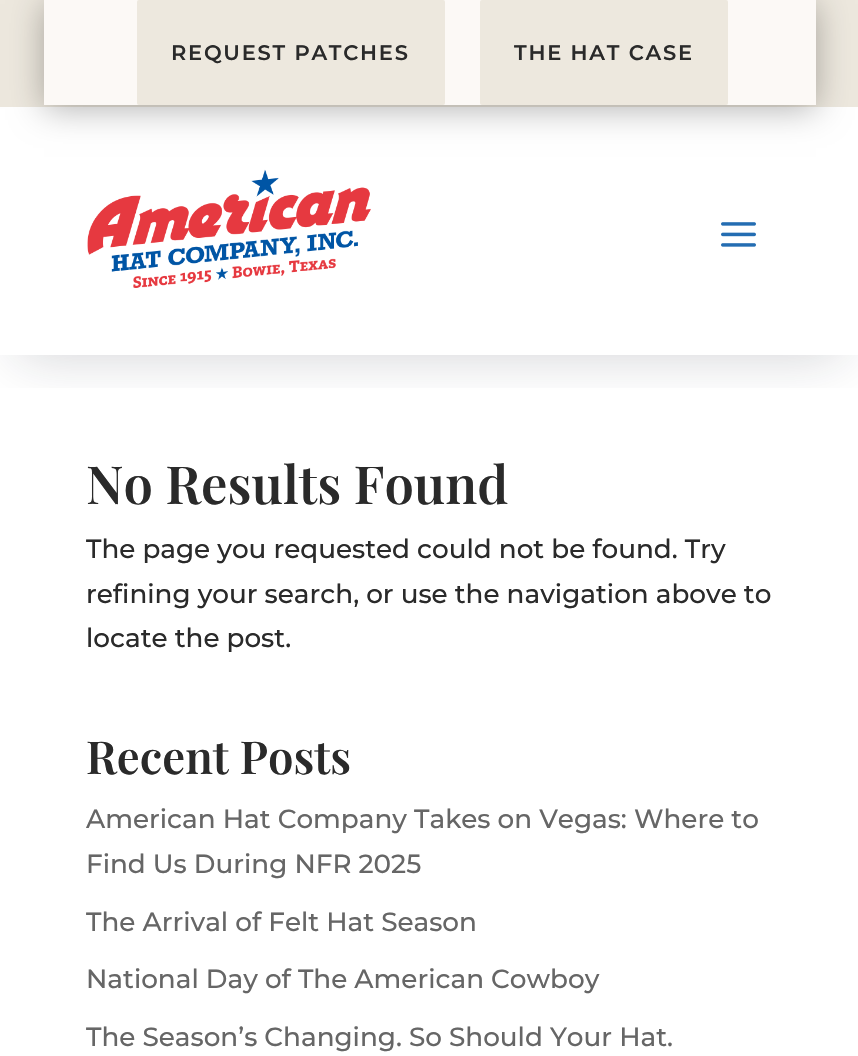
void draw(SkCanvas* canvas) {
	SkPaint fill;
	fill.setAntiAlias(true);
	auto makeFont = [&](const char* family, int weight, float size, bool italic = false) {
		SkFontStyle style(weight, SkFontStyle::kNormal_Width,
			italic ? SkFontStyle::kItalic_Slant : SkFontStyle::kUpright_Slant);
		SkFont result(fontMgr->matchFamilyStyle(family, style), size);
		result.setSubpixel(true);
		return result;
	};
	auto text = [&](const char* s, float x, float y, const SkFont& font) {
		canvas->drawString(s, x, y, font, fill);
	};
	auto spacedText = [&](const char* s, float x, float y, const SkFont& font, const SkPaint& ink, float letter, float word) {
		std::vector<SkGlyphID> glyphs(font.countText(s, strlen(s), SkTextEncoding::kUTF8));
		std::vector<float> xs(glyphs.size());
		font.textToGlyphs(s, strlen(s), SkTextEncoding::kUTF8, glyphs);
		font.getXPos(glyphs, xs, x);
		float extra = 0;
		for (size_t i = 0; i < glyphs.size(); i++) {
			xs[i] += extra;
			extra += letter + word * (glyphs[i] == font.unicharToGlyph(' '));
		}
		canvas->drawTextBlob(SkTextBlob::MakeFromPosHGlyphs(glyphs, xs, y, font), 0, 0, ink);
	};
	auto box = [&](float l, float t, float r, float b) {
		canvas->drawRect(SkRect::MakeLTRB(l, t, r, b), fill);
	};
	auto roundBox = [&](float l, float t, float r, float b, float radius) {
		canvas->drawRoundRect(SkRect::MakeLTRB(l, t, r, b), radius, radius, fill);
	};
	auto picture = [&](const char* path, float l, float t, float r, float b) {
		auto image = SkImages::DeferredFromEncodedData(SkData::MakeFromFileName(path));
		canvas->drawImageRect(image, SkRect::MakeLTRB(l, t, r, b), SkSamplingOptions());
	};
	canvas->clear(0xFFFFFFFF);
	canvas->save();
	canvas->clipRect(SkRect::MakeLTRB(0, 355, 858, 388));
	fill.setColor(0x331A202C);
	fill.setMaskFilter(SkMaskFilter::MakeBlur(kNormal_SkBlurStyle, 26));
	canvas->drawRect(SkRect::MakeLTRB(18, 35, 842, 355), fill);
	fill.setMaskFilter(nullptr);
	canvas->restore();
	fill.setColor(0xFFEDE8DE);
	box(0, 0, 858, 107);
	fill.setColor(0x4D000000);
	fill.setMaskFilter(SkMaskFilter::MakeBlur(kNormal_SkBlurStyle, 16));
	canvas->drawRect(SkRect::MakeLTRB(44, 4, 816, 109), fill);
	fill.setMaskFilter(nullptr);
	fill.setColor(0xFFFCF9F6);
	box(44, 0, 816, 105);
	fill.setColor(0xFFEDE8DE);
	roundBox(137, 0, 445, 105, 2);
	roundBox(480, 0, 728, 105, 2);
	picture("image0.png", 87, 169, 371, 288);
	picture("image1.png", 721, 222, 756, 247);
	auto font1 = makeFont("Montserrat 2", 100, 21);
	fill.setColor(0xFF2A2A2A);
	spacedText("REQUEST PATCHES", 171, 60, font1, fill, 1.75f, 0);
	spacedText("THE HAT CASE", 514, 60, font1, fill, 1.75f, 0);
	auto font2 = makeFont("Playfair Display", 600, 52.5f);
	text("No Results Found", 86, 504, font2);
	auto font3 = makeFont("Montserrat", 100, 26.25f);
	text("The page you requested could not be found. Try", 86, 558, font3);
	text("refining your search, or use the navigation above to", 86, 603, font3);
	text("locate the post.", 86, 647, font3);
	auto font4 = makeFont("Playfair Display", 600, 45.5f);
	text("Recent Posts", 86, 774, font4);
	fill.setColor(0xFF666666);
	text("American Hat Company Takes on Vegas: Where to", 86, 828, font3);
	text("Find Us During NFR 2025", 86, 873, font3);
	text("The Arrival of Felt Hat Season", 86, 931, font3);
	text("National Day of The American Cowboy", 86, 988, font3);
	text("The Season’s Changing. So Should Your Hat.", 86, 1046, font3);
}
